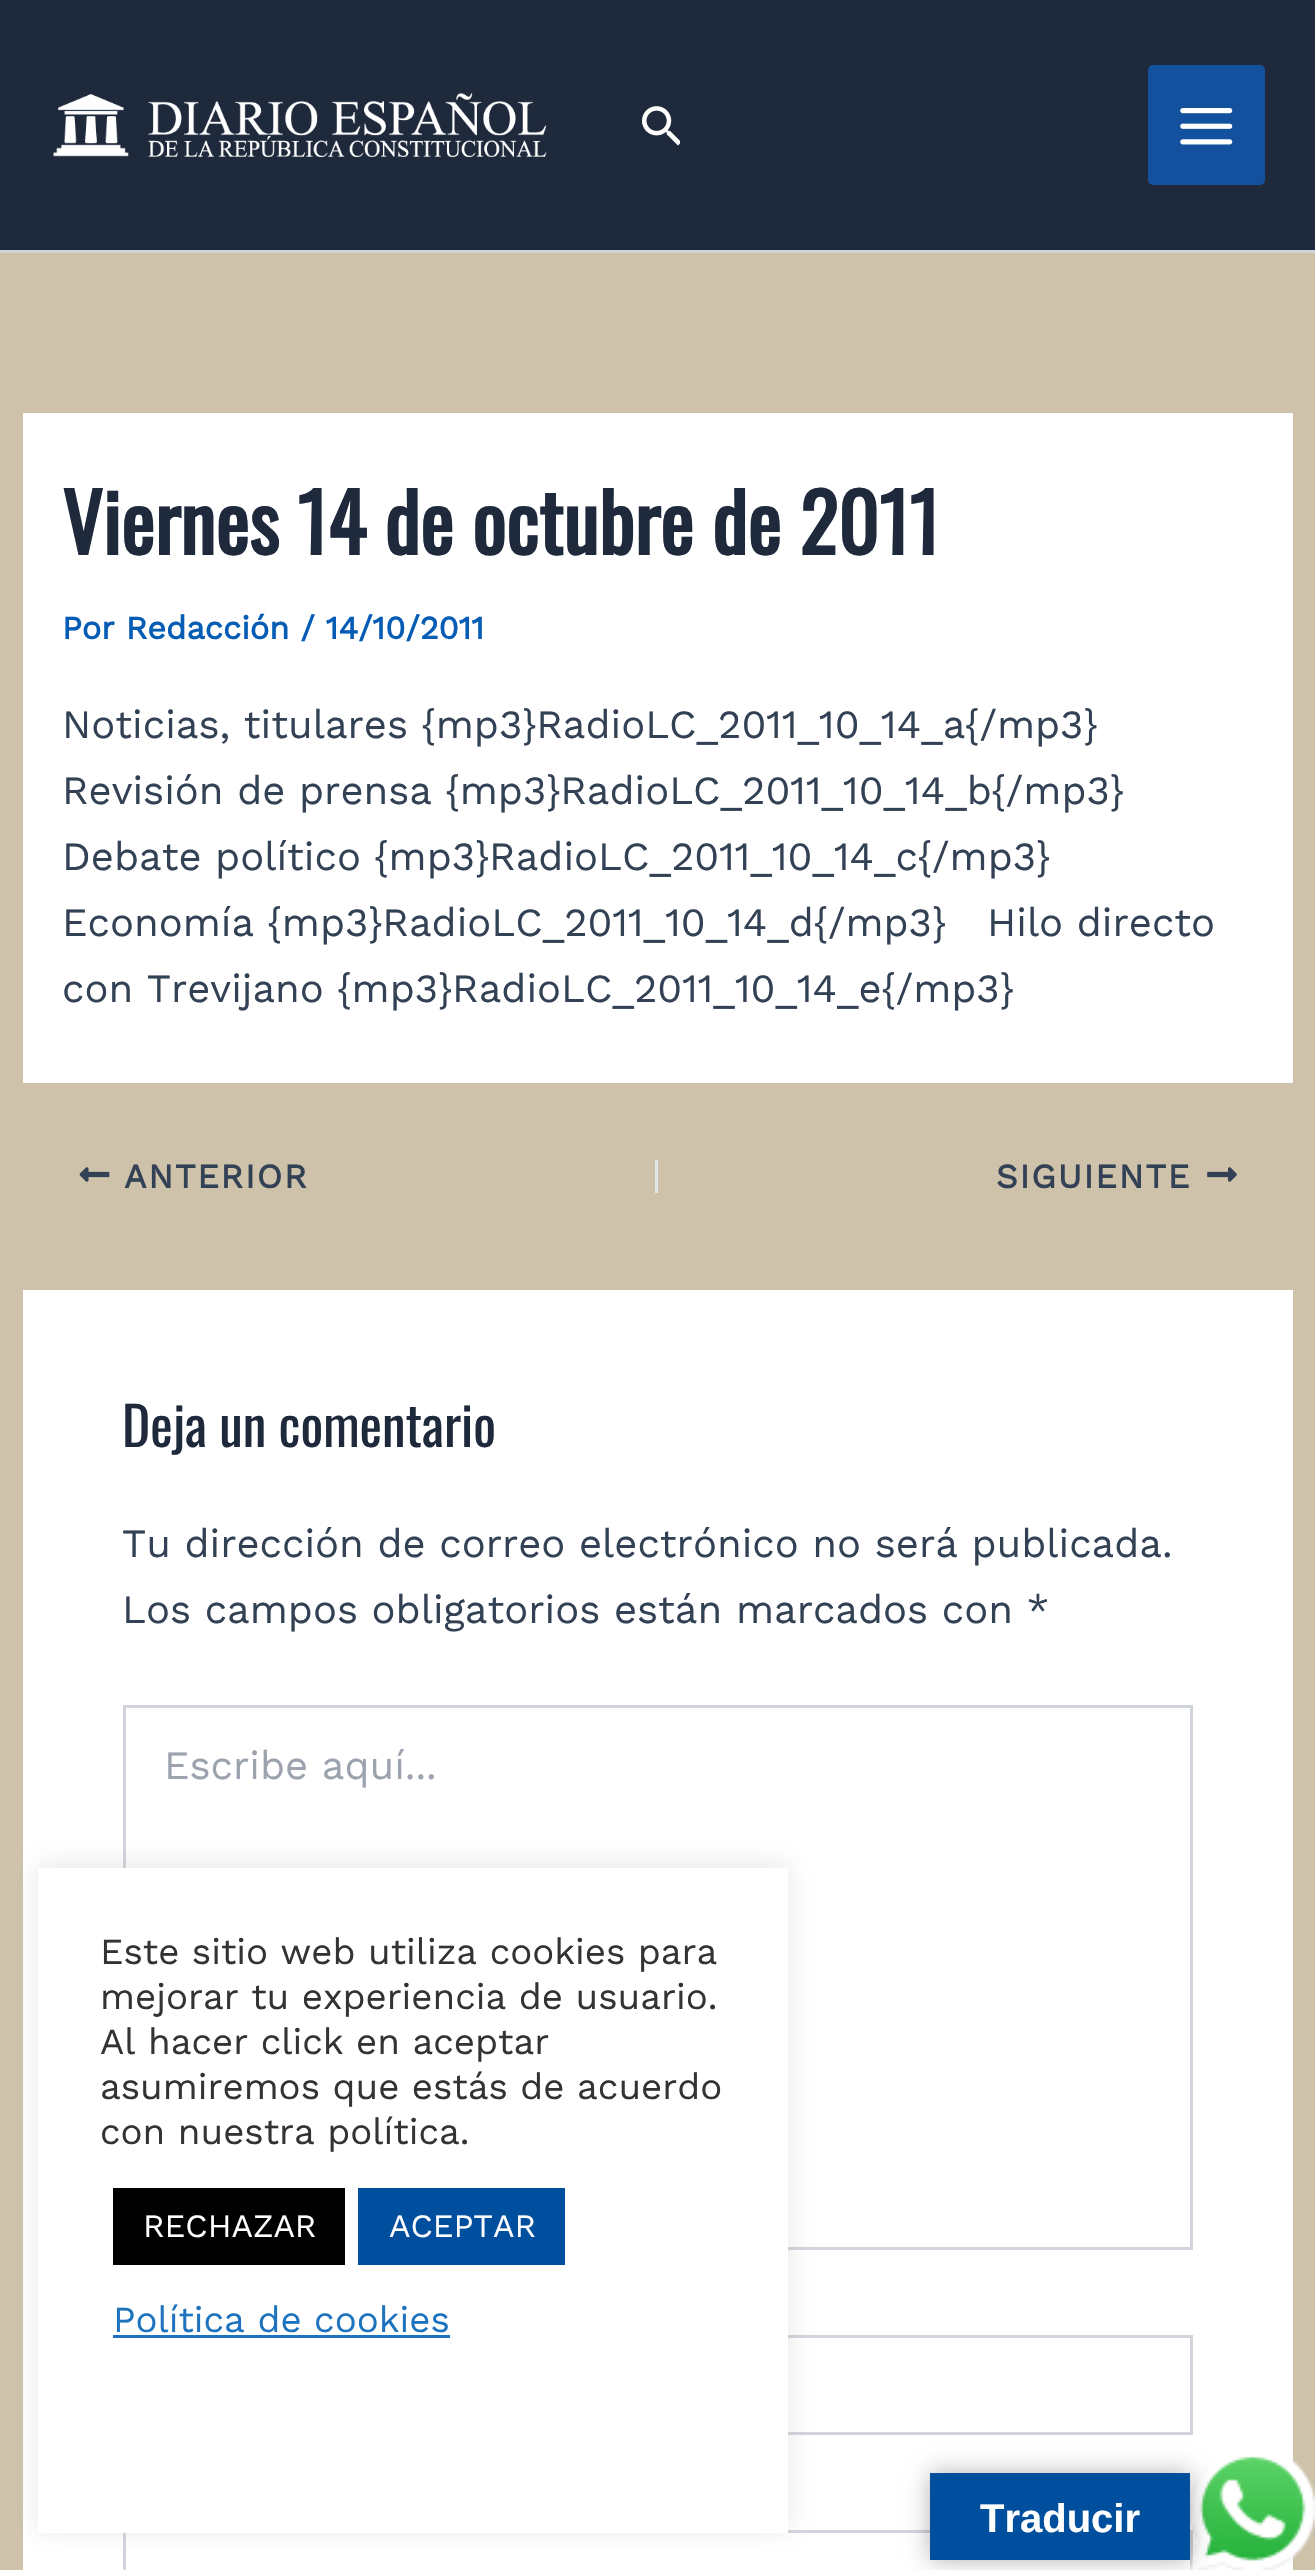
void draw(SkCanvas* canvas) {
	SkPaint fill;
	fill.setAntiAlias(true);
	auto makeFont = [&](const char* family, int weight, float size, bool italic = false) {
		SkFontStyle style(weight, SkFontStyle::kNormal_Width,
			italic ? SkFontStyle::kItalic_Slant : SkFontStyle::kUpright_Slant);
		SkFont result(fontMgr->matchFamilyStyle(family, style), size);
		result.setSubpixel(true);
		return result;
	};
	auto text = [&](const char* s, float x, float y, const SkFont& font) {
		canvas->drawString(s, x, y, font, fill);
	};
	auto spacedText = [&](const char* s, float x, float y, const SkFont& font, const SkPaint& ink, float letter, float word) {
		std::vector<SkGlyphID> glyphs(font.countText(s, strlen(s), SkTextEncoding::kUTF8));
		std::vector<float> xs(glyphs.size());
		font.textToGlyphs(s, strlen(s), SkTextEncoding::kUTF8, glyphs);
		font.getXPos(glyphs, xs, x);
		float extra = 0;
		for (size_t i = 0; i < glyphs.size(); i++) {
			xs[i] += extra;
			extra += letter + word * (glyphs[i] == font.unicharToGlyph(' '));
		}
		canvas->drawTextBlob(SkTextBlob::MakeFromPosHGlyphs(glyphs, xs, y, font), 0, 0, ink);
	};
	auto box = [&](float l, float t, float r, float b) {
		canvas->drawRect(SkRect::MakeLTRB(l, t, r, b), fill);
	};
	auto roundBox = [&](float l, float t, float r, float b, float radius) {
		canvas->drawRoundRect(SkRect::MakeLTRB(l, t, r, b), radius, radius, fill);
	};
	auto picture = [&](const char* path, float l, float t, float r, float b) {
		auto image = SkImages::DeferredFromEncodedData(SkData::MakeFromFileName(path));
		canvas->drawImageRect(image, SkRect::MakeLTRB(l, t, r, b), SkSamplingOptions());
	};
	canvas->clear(0xFFCEC2AB);
	fill.setColor(0xFF1E293B);
	box(0, 0, 1315, 250);
	fill.setColor(0xFFD1D5DB);
	box(0, 250, 1315, 253);
	picture("image0.png", 53, 93, 547, 157);
	picture("image1.png", 642, 106, 680, 146);
	fill.setColor(0xFF13509D);
	roundBox(1148, 65, 1265, 185, 5);
	picture("image2.png", 1180, 108, 1233, 145);
	fill.setColor(0xFFFFFFFF);
	box(23, 413, 1293, 1083);
	picture("image3.png", 79, 1167, 110, 1182);
	fill.setColor(0xFFE1E8ED);
	box(655, 1160, 658, 1193);
	picture("image4.png", 1207, 1167, 1237, 1182);
	fill.setColor(0xFFFFFFFF);
	box(23, 1290, 1293, 2570);
	fill.setStyle(SkPaint::kStroke_Style);
	fill.setStrokeWidth(3);
	fill.setColor(0xFFD1D5DB);
	canvas->drawRect(SkRect::MakeLTRB(124.5f, 1706.5f, 1191.5f, 2248.5f), fill);
	canvas->drawRect(SkRect::MakeLTRB(124.5f, 2336.5f, 1191.5f, 2433.5f), fill);
	canvas->drawRect(SkRect::MakeLTRB(124.5f, 2531.5f, 1191.5f, 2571.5f), fill);
	fill.setStyle(SkPaint::kFill_Style);
	fill.setColor(0x4DACABAB);
	fill.setMaskFilter(SkMaskFilter::MakeBlur(kNormal_SkBlurStyle, 12.5f));
	canvas->drawRect(SkRect::MakeLTRB(38, 1865, 788, 2530), fill);
	fill.setMaskFilter(nullptr);
	fill.setColor(0xFFFFFFFF);
	box(38, 1868, 788, 2533);
	fill.setColor(0xFF000000);
	box(113, 2188, 345, 2265);
	fill.setColor(0xFF004F9F);
	box(358, 2188, 565, 2265);
	fill.setColor(0xFF1E73BE);
	box(113, 2335, 450, 2338);
	picture("image5.png", 1190, 2456, 1315, 2570);
	fill.setColor(0x4D000000);
	fill.setMaskFilter(SkMaskFilter::MakeBlur(kNormal_SkBlurStyle, 11));
	canvas->drawRect(SkRect::MakeLTRB(930, 2473, 1190, 2560), fill);
	fill.setMaskFilter(nullptr);
	fill.setColor(0xFF004F9F);
	box(930, 2473, 1190, 2560);
	auto font1 = makeFont("Oswald", 700, 80);
	fill.setColor(0xFF1E293B);
	text("Viernes 14 de octubre de 2011", 62, 555, font1);
	auto font2 = makeFont("Work Sans", 700, 32.5f);
	fill.setColor(0xFF045CB4);
	text("Por Redacción / 14/10/2011", 62, 639, font2);
	auto font3 = makeFont("Work Sans", 400, 40);
	fill.setColor(0xFF334155);
	text("Noticias, titulares {mp3}RadioLC_2011_10_14_a{/mp3}", 62, 738, font3);
	text("Revisión de prensa {mp3}RadioLC_2011_10_14_b{/mp3}", 62, 804, font3);
	text("Debate político {mp3}RadioLC_2011_10_14_c{/mp3}", 62, 870, font3);
	text("Economía {mp3}RadioLC_2011_10_14_d{/mp3}   Hilo directo", 62, 936, font3);
	text("con Trevijano {mp3}RadioLC_2011_10_14_e{/mp3}", 62, 1002, font3);
	auto font4 = makeFont("Work Sans", 700, 34);
	spacedText("ANTERIOR", 124, 1188, font4, fill, 1.75f, 0);
	spacedText("SIGUIENTE", 996, 1188, font4, fill, 1.75f, 0);
	auto font5 = makeFont("Oswald", 400, 53.5f);
	fill.setColor(0xFF1E293B);
	text("Deja un comentario", 122, 1447, font5);
	fill.setColor(0xFF334155);
	text("Tu dirección de correo electrónico no será publicada.", 122, 1557, font3);
	text("Los campos obligatorios están marcados con *", 122, 1623, font3);
	fill.setColor(0xFF9CA3AF);
	text("Escribe aquí...", 164, 1779, font3);
	auto font6 = makeFont("Work Sans", 400, 36.7f);
	fill.setColor(0xFF333333);
	text("Este sitio web utiliza cookies para", 100, 1964, font6);
	text("mejorar tu experiencia de usuario.", 100, 2009, font6);
	text("Al hacer click en aceptar", 100, 2054, font6);
	text("asumiremos que estás de acuerdo", 100, 2099, font6);
	text("con nuestra política.", 100, 2144, font6);
	auto font7 = makeFont("Work Sans", 400, 32.5f);
	fill.setColor(0xFFFFFFFF);
	text("RECHAZAR", 143, 2237, font7);
	text("ACEPTAR", 389, 2237, font7);
	fill.setColor(0xFF1E73BE);
	text("Política de cookies", 113, 2332, font6);
	auto font8 = makeFont("Liberation Sans", 700, 40);
	fill.setColor(0xFFFFFFFF);
	text("Traducir", 980, 2532, font8);
}
